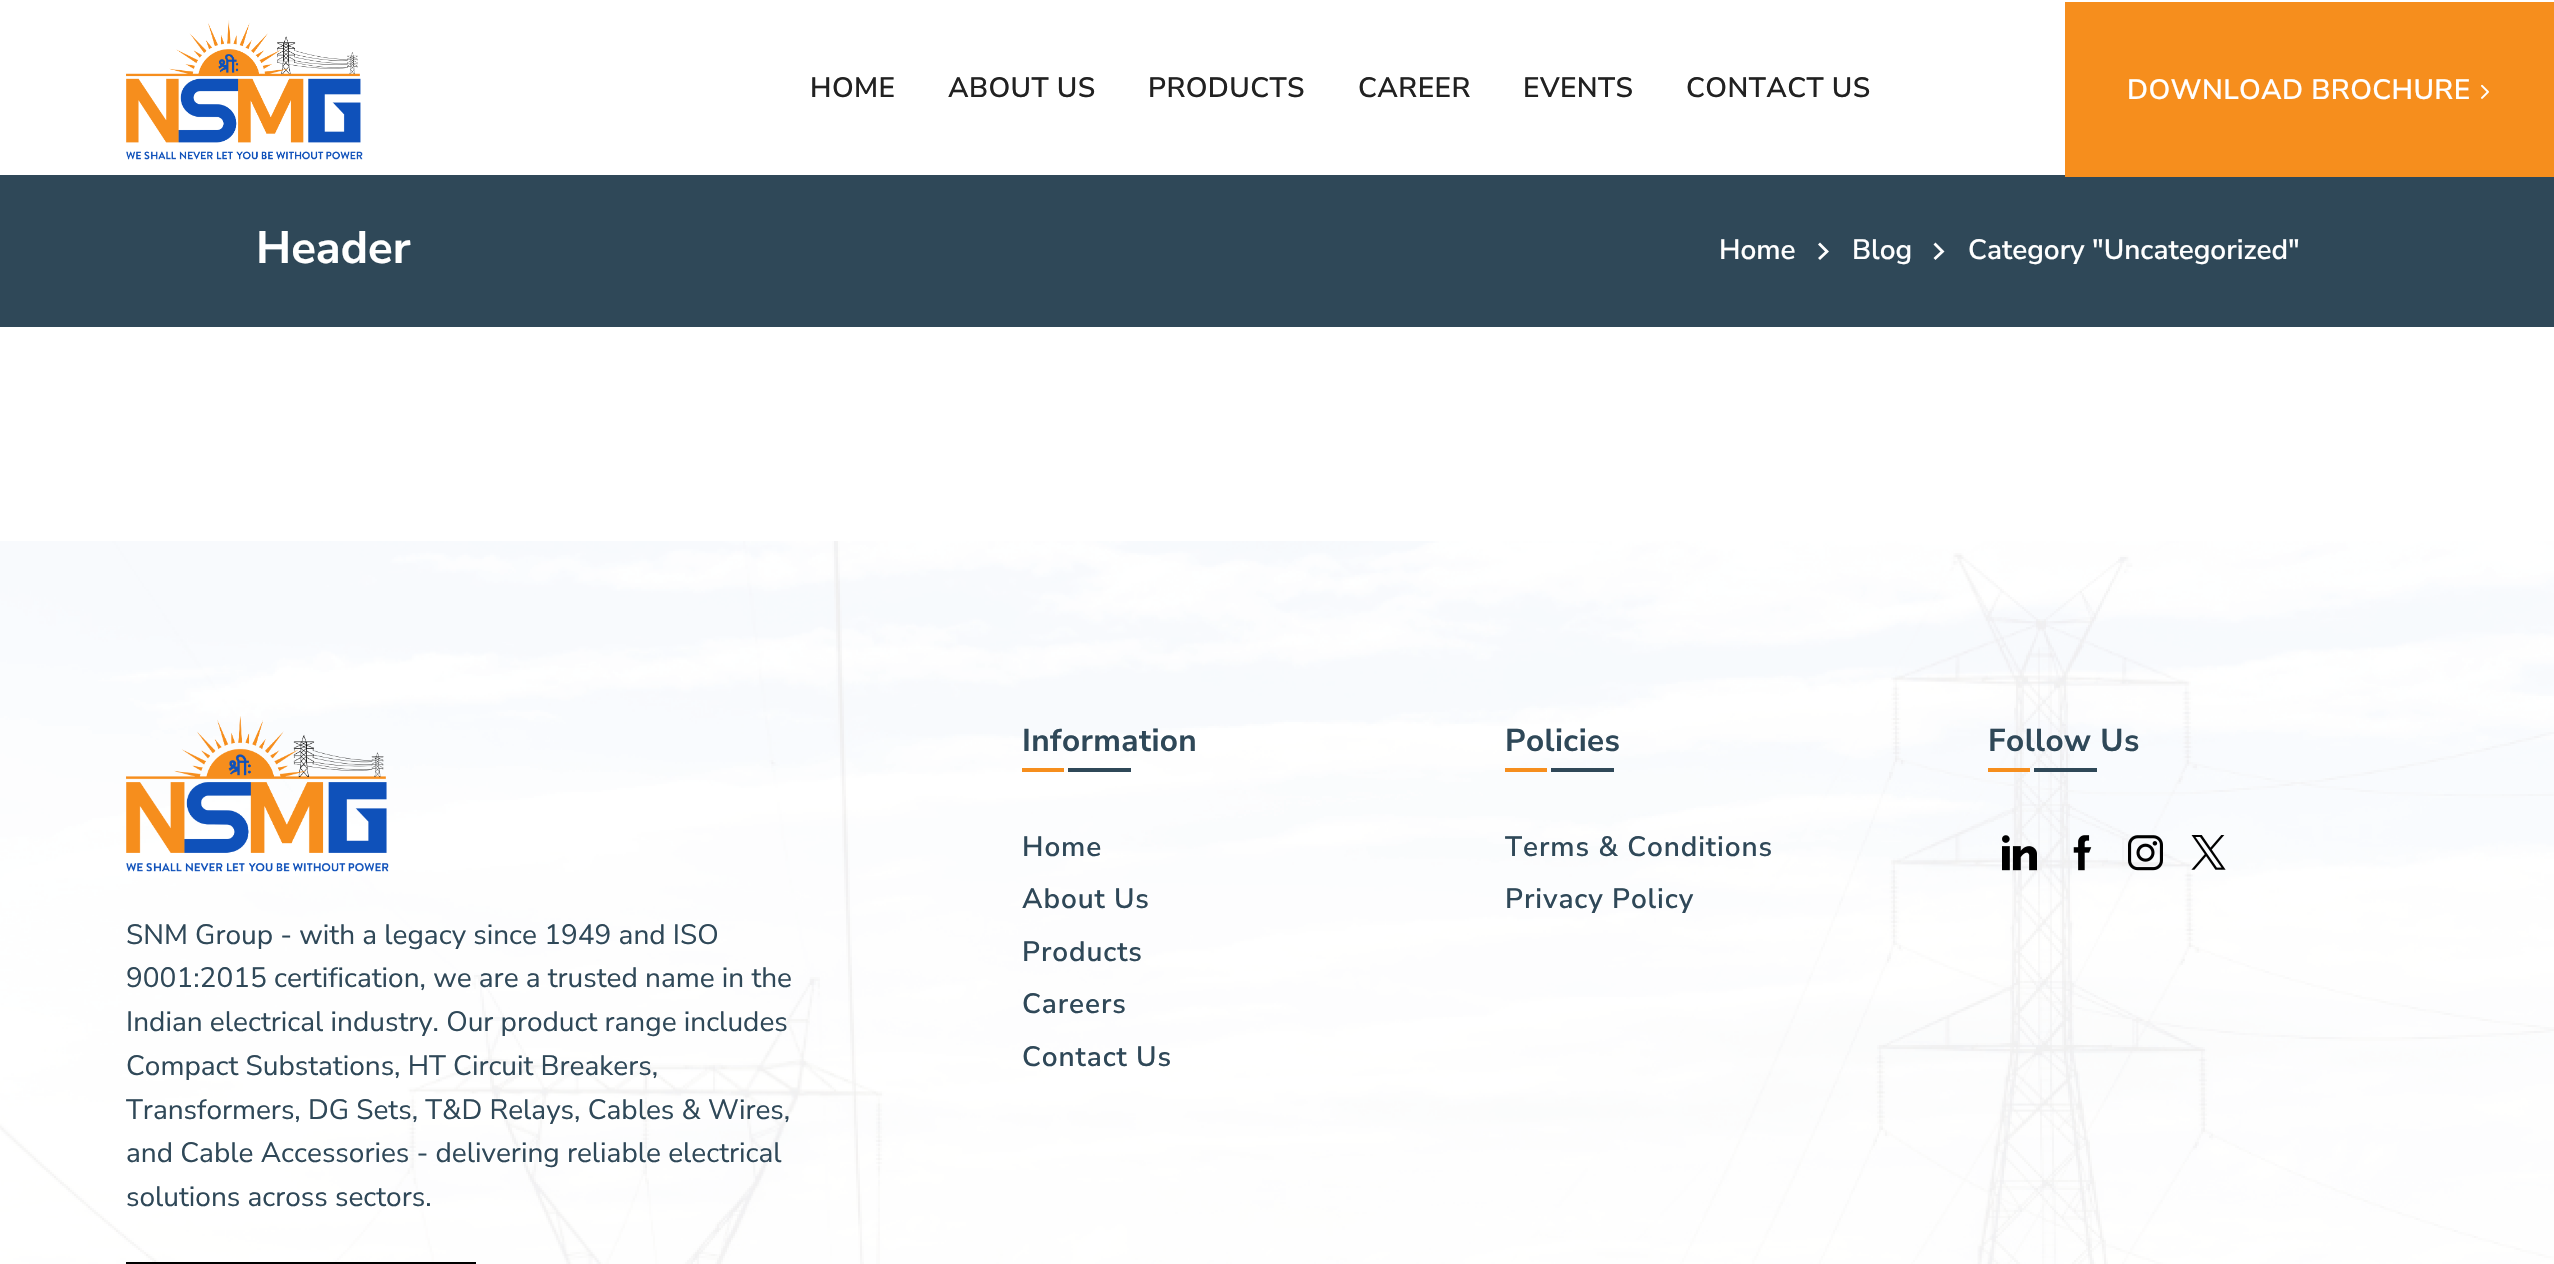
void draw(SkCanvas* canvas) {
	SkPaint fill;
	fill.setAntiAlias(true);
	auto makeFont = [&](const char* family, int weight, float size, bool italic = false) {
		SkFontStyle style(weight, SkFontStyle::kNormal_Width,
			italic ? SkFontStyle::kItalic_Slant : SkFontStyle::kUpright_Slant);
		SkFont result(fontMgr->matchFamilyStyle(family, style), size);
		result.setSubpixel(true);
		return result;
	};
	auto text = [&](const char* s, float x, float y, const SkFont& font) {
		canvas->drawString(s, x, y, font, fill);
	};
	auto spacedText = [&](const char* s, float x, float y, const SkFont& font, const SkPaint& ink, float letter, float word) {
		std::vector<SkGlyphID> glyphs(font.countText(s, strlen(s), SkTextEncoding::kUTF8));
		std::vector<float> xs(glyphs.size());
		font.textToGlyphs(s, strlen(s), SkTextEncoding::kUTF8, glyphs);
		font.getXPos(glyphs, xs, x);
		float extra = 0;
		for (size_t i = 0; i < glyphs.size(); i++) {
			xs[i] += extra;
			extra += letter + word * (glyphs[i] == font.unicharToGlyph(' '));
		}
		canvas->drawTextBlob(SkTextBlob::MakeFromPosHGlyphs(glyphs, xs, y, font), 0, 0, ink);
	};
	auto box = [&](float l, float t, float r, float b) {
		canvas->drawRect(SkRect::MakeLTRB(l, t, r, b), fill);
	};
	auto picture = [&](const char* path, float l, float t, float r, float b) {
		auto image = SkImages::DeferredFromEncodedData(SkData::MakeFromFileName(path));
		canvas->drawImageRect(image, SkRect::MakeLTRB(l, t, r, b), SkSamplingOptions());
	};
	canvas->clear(0xFFFFFFFF);
	picture("image0.png", 126, 20, 363, 160);
	fill.setColor(0xFF2F4858);
	box(0, 175, 2554, 327);
	fill.setColor(0xFFF68E1D);
	box(2065, 2, 2554, 177);
	picture("image1.png", 2481, 84, 2489, 99);
	fill.setColor(0xFFFFFFFF);
	canvas->drawPath(SkPathBuilder().moveTo(1820, 242.5f).lineTo(1818, 244.5f).lineTo(1825, 251.5f).lineTo(1818, 258).lineTo(1820, 260).lineTo(1829, 251.5f).close().detach(), fill);
	canvas->drawPath(SkPathBuilder().moveTo(1935.5f, 242.5f).lineTo(1933.5f, 244.5f).lineTo(1940.5f, 251.5f).lineTo(1933.5f, 258).lineTo(1935.5f, 260).lineTo(1944.5f, 251.5f).close().detach(), fill);
	picture("image2.png", 0, 541, 2554, 1264);
	picture("image3.png", 126, 716, 389, 872);
	fill.setStyle(SkPaint::kStroke_Style);
	fill.setStrokeWidth(2);
	fill.setColor(0xFF000000);
	canvas->drawRect(SkRect::MakeLTRB(127, 1263, 475, 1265), fill);
	fill.setStyle(SkPaint::kFill_Style);
	fill.setColor(0xFFF68E1D);
	box(1022, 768, 1064, 772);
	fill.setColor(0xFF2F4858);
	box(1068, 768, 1131, 772);
	fill.setColor(0xFFF68E1D);
	box(1505, 768, 1547, 772);
	fill.setColor(0xFF2F4858);
	box(1551, 768, 1614, 772);
	fill.setColor(0xFFF68E1D);
	box(1988, 768, 2030, 772);
	fill.setColor(0xFF2F4858);
	box(2034, 768, 2097, 772);
	picture("image4.png", 2002, 835, 2037, 871);
	picture("image5.png", 2073, 835, 2092, 871);
	picture("image6.png", 2128, 835, 2163, 871);
	picture("image7.png", 2191, 835, 2226, 870);
	auto font1 = makeFont("Nunito Sans", 600, 28);
	fill.setColor(0xFF212121);
	spacedText("HOME", 810, 97, font1, fill, 0.4f, 0);
	spacedText("ABOUT US", 948, 97, font1, fill, 0.4f, 0);
	spacedText("PRODUCTS", 1148, 97, font1, fill, 0.4f, 0);
	spacedText("CAREER", 1358, 97, font1, fill, 0.4f, 0);
	spacedText("EVENTS", 1523, 97, font1, fill, 0.4f, 0);
	spacedText("CONTACT US", 1686, 97, font1, fill, 0.4f, 0);
	fill.setColor(0xFFFFFFFF);
	spacedText("DOWNLOAD BROCHURE", 2127, 99, font1, fill, 0.4f, 0);
	auto font2 = makeFont("Nunito Sans", 700, 45.5f);
	text("Header", 256, 263, font2);
	text("Home", 1719, 259, font1);
	text("Blog", 1852, 259, font1);
	text("Category \"Uncategorized\"", 1968, 259, font1);
	auto font3 = makeFont("Nunito Sans", 400, 28);
	fill.setColor(0xFF2F4858);
	text("SNM Group - with a legacy since 1949 and ISO", 126, 944, font3);
	text("9001:2015 certification, we are a trusted name in the", 126, 987, font3);
	text("Indian electrical industry. Our product range includes", 126, 1031, font3);
	text("Compact Substations, HT Circuit Breakers,", 126, 1075, font3);
	text("Transformers, DG Sets, T&D Relays, Cables & Wires,", 126, 1119, font3);
	text("and Cable Accessories - delivering reliable electrical", 126, 1162, font3);
	text("solutions across sectors.", 126, 1206, font3);
	auto font4 = makeFont("Nunito Sans", 700, 31.5f);
	spacedText("Information", 1022, 751, font4, fill, 0.4f, 0);
	spacedText("Home", 1022, 856, font1, fill, 0.9f, 0);
	spacedText("About Us", 1022, 908, font1, fill, 0.9f, 0);
	spacedText("Products", 1022, 961, font1, fill, 0.9f, 0);
	spacedText("Careers", 1022, 1013, font1, fill, 0.9f, 0);
	spacedText("Contact Us", 1022, 1066, font1, fill, 0.9f, 0);
	spacedText("Policies", 1505, 751, font4, fill, 0.4f, 0);
	spacedText("Terms & Conditions", 1505, 856, font1, fill, 0.9f, 0);
	spacedText("Privacy Policy", 1505, 908, font1, fill, 0.9f, 0);
	spacedText("Follow Us", 1988, 751, font4, fill, 0.4f, 0);
}
